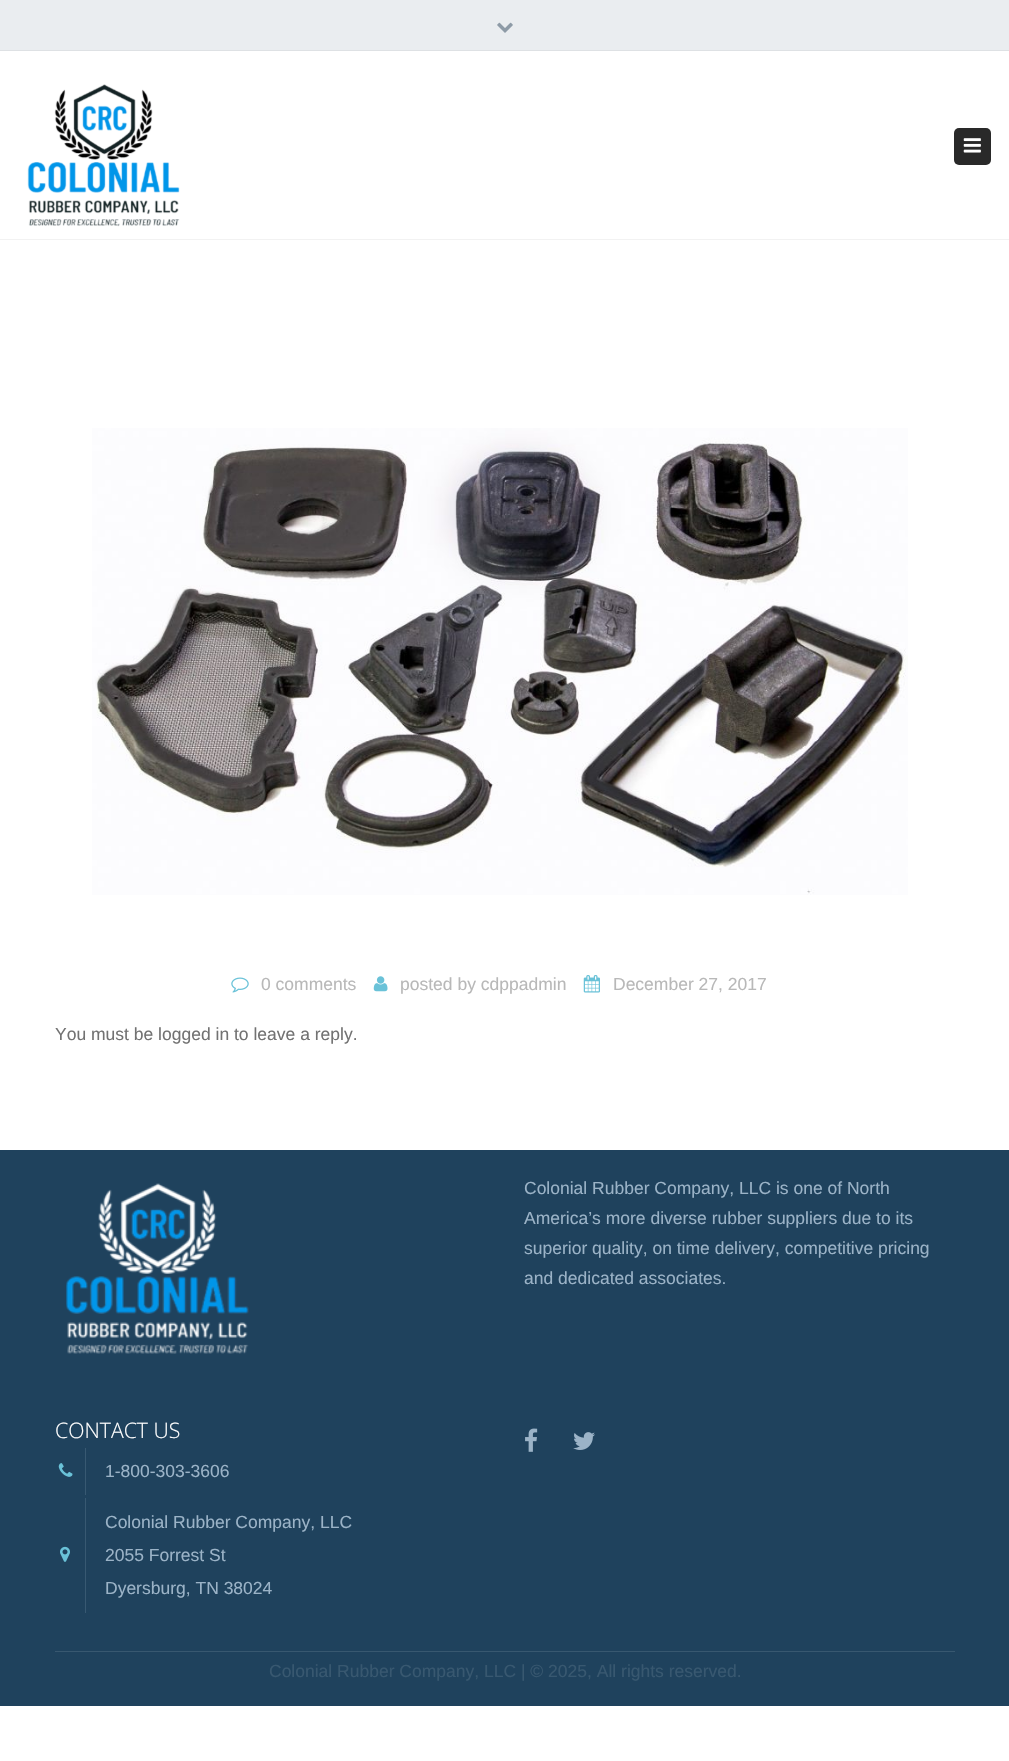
void draw(SkCanvas* canvas) {
	SkPaint fill;
	fill.setAntiAlias(true);
	auto makeFont = [&](const char* family, int weight, float size, bool italic = false) {
		SkFontStyle style(weight, SkFontStyle::kNormal_Width,
			italic ? SkFontStyle::kItalic_Slant : SkFontStyle::kUpright_Slant);
		SkFont result(fontMgr->matchFamilyStyle(family, style), size);
		result.setSubpixel(true);
		return result;
	};
	auto text = [&](const char* s, float x, float y, const SkFont& font) {
		canvas->drawString(s, x, y, font, fill);
	};
	auto box = [&](float l, float t, float r, float b) {
		canvas->drawRect(SkRect::MakeLTRB(l, t, r, b), fill);
	};
	auto roundBox = [&](float l, float t, float r, float b, float radius) {
		canvas->drawRoundRect(SkRect::MakeLTRB(l, t, r, b), radius, radius, fill);
	};
	auto picture = [&](const char* path, float l, float t, float r, float b) {
		auto image = SkImages::DeferredFromEncodedData(SkData::MakeFromFileName(path));
		canvas->drawImageRect(image, SkRect::MakeLTRB(l, t, r, b), SkSamplingOptions());
	};
	canvas->clear(0xFFFFFFFF);
	fill.setColor(0xFFEAEDF0);
	box(0, 0, 1009, 50);
	fill.setColor(0xFFDEE1E4);
	box(0, 50, 1009, 51);
	picture("image0.png", 497, 22, 513, 33);
	picture("image1.png", 27, 84, 180, 227);
	fill.setColor(0xFFF2F2F2);
	box(0, 239, 1009, 240);
	fill.setColor(0xFF292929);
	roundBox(954, 128, 991, 165, 5);
	picture("image2.png", 963, 138, 981, 153);
	picture("image3.png", 92, 428, 908, 895);
	picture("image4.png", 231, 977, 249, 993);
	picture("image5.png", 373, 976, 388, 992);
	picture("image6.png", 583, 975, 600, 993);
	fill.setColor(0xFF1F425D);
	box(0, 1150, 1009, 1706);
	picture("image7.png", 66, 1183, 249, 1354);
	picture("image8.png", 58, 1463, 73, 1477);
	fill.setColor(0xFF385972);
	box(85, 1448, 86, 1495);
	box(85, 1498, 86, 1613);
	picture("image9.png", 60, 1546, 70, 1562);
	picture("image10.png", 525, 1428, 538, 1452);
	picture("image11.png", 573, 1432, 595, 1450);
	fill.setColor(0xFF385870);
	box(55, 1651, 955, 1652);
	auto font1 = makeFont("Liberation Sans", 400, 17.5f);
	fill.setColor(0xFFB8B8B8);
	text("0 comments", 261, 990, font1);
	text("posted by cdppadmin", 400, 990, font1);
	text("December 27, 2017", 613, 990, font1);
	fill.setColor(0xFF727272);
	text("You must be logged in to leave a reply.", 55, 1040, font1);
	fill.setColor(0xFF9BB3C7);
	text("Colonial Rubber Company, LLC is one of North", 524, 1194, font1);
	text("America’s more diverse rubber suppliers due to its", 524, 1224, font1);
	text("superior quality, on time delivery, competitive pricing", 524, 1254, font1);
	text("and dedicated associates.", 524, 1284, font1);
	auto font2 = makeFont("Open Sans", 300, 21.25f);
	fill.setColor(0xFFFFFFFF);
	text("CONTACT US", 55, 1438, font2);
	fill.setColor(0xFF9BB3C7);
	text("1-800-303-3606", 105, 1477, font1);
	text("Colonial Rubber Company, LLC", 105, 1528, font1);
	text("2055 Forrest St", 105, 1561, font1);
	text("Dyersburg, TN 38024", 105, 1594, font1);
	fill.setColor(0xFF385870);
	text("Colonial Rubber Company, LLC | © 2025, All rights reserved.", 269, 1677, font1);
}
